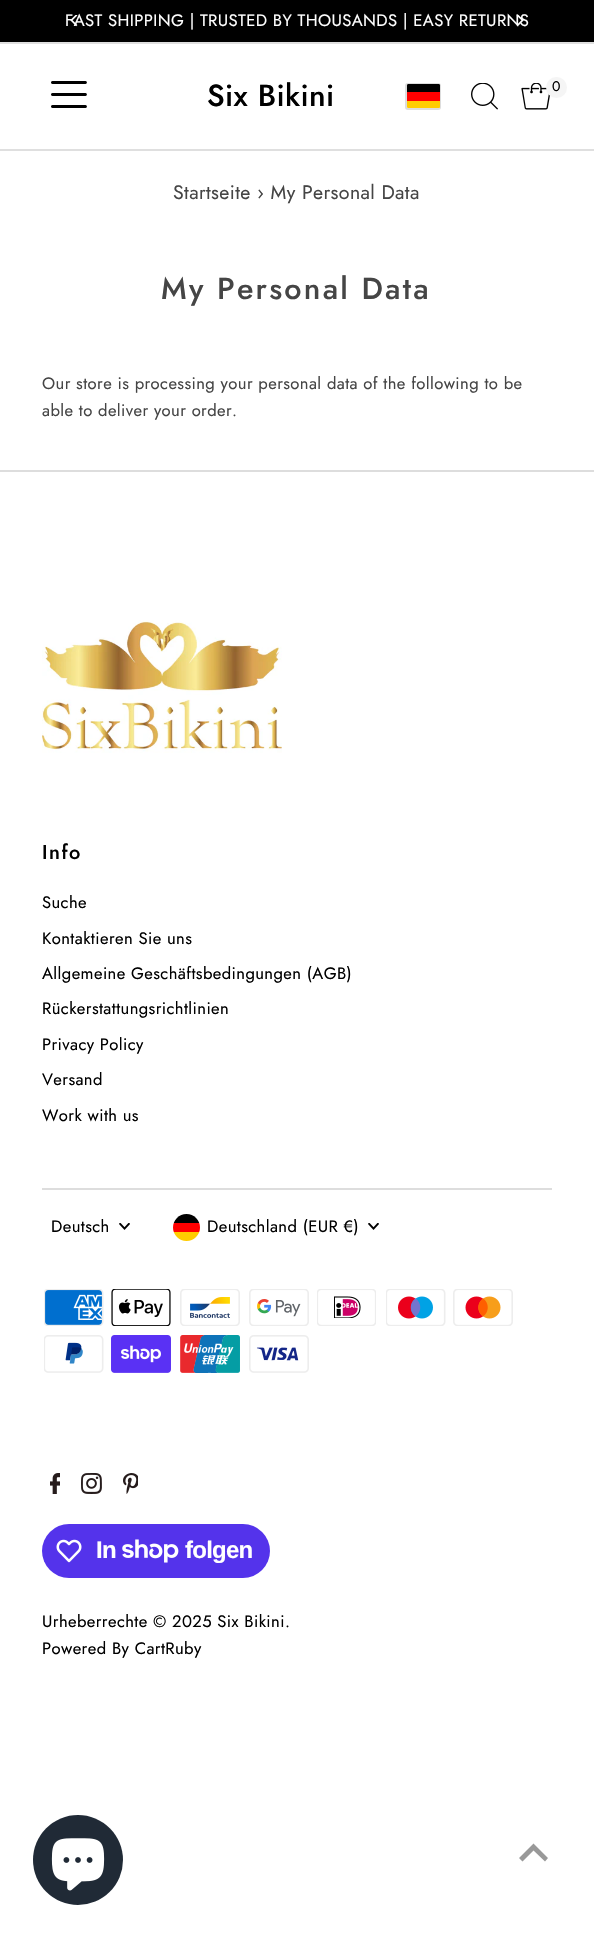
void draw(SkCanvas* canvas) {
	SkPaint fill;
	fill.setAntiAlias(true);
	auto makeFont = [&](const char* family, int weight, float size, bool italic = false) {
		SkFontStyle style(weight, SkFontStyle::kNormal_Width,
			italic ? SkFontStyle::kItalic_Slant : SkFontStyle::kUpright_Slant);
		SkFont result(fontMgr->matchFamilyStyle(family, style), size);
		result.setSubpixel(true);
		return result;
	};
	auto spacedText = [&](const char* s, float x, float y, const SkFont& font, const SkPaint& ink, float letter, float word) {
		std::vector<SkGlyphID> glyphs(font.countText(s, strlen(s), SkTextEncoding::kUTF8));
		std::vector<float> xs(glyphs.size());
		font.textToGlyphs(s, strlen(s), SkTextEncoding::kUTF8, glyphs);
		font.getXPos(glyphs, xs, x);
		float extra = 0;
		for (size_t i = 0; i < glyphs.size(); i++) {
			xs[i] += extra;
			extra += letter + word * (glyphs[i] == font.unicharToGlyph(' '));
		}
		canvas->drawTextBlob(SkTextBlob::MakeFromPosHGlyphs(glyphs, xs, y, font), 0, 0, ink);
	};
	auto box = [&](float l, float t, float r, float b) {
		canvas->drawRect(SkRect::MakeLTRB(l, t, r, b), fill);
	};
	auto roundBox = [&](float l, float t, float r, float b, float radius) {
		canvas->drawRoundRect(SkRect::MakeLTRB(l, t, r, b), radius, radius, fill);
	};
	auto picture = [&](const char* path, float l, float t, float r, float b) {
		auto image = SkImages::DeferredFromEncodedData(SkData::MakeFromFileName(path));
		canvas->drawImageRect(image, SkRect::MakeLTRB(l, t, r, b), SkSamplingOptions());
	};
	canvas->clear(0xFFFFFFFF);
	fill.setColor(0xFF000000);
	box(0, 0, 594, 42);
	fill.setColor(0xFFDFDFDF);
	box(0, 42, 594, 44);
	box(0, 149, 594, 151);
	picture("image2.png", 51, 81, 87, 108);
	fill.setStyle(SkPaint::kStroke_Style);
	fill.setStrokeWidth(2);
	fill.setColor(0xFFDDDDDD);
	canvas->drawRoundRect(SkRect::MakeLTRB(406, 84, 440, 109), 2, 2, fill);
	fill.setStyle(SkPaint::kFill_Style);
	fill.setColor(0xFFFFCC00);
	canvas->drawPath(SkPathBuilder().moveTo(407, 101).lineTo(440, 101).lineTo(440, 106.5f).cubicTo(440, 107.5f, 439.5f, 108, 438.5f, 108).lineTo(408.5f, 108).cubicTo(407.5f, 108, 407, 107.5f, 407, 106.5f).close().detach(), fill);
	fill.setColor(0xFF000000);
	canvas->drawPath(SkPathBuilder().moveTo(408.5f, 84).lineTo(438.5f, 84).cubicTo(439.5f, 84, 440, 84.5f, 440, 85.5f).lineTo(440, 92).lineTo(407, 92).lineTo(407, 85.5f).cubicTo(407, 84.5f, 407.5f, 84, 408.5f, 84).close().detach(), fill);
	fill.setColor(0xFFFF0000);
	box(407, 92, 440, 101);
	picture("image3.png", 471, 83, 498, 110);
	picture("image4.png", 521, 83, 550, 110);
	fill.setColor(0xFFF5F5F5);
	canvas->drawCircle(556.5f, 87.5f, 10.5f, fill);
	fill.setColor(0xFFDDDDDD);
	box(0, 470, 594, 472);
	picture("image5.png", 42, 620, 282, 753);
	box(42, 1188, 552, 1190);
	picture("image6.png", 119, 1223, 130, 1230);
	canvas->save();
	canvas->clipPath(SkPathBuilder().moveTo(186.5f, 1214).cubicTo(194, 1214, 200, 1220, 200, 1227.5f).cubicTo(200, 1235, 194, 1241, 186.5f, 1241).cubicTo(179, 1241, 173, 1235, 173, 1227.5f).cubicTo(173, 1220, 179, 1214, 186.5f, 1214).close().detach(), true);
	fill.setColor(0xFFFFCC00);
	box(173, 1232, 200, 1241);
	fill.setColor(0xFF000000);
	box(173, 1214, 200, 1223);
	fill.setColor(0xFFFF0000);
	box(173, 1223, 200, 1232);
	canvas->restore();
	picture("image6.png", 368, 1223, 379, 1230);
	picture("image7.png", 44, 1289, 104, 1326);
	picture("image8.png", 111, 1289, 171, 1326);
	picture("image9.png", 180, 1289, 240, 1326);
	picture("image10.png", 249, 1289, 309, 1326);
	picture("image11.png", 317, 1289, 376, 1326);
	picture("image12.png", 386, 1289, 446, 1326);
	picture("image13.png", 453, 1289, 513, 1326);
	picture("image14.png", 44, 1335, 104, 1373);
	picture("image15.png", 111, 1335, 171, 1373);
	picture("image16.png", 180, 1335, 240, 1373);
	picture("image17.png", 249, 1335, 309, 1373);
	picture("image18.png", 50, 1473, 60, 1494);
	picture("image19.png", 81, 1473, 102, 1494);
	picture("image20.png", 123, 1473, 138, 1494);
	fill.setColor(0xFF5433EB);
	roundBox(42, 1524, 270, 1578, 27);
	picture("image21.png", 56, 1539, 82, 1563);
	picture("image22.png", 122, 1539, 179, 1563);
	fill.setColor(0xFF999999);
	canvas->drawPath(SkPathBuilder().moveTo(533.5f, 1843.5f).lineTo(519, 1858).lineTo(522.5f, 1861.5f).lineTo(533.5f, 1850.5f).lineTo(545, 1861.5f).lineTo(548, 1858).close().detach(), fill);
	fill.setColor(0xFF202A36);
	canvas->drawCircle(78, 1860, 45, fill);
	picture("image23.png", 51, 1838, 105, 1891);
	auto font1 = makeFont("Jost", 400, 16.6f);
	fill.setColor(0xFFFFFFFF);
	spacedText("FAST SHIPPING | TRUSTED BY THOUSANDS | EASY RETURNS", 65, 26, font1, fill, 0.4f, 0);
	picture("image0.png", 70, 15, 78, 27);
	picture("image1.png", 516, 15, 524, 27);
	auto font2 = makeFont("Jost", 500, 30.5f);
	fill.setColor(0xFF000000);
	spacedText("Six Bikini", 207, 106, font2, fill, 0.4f, 0);
	auto font3 = makeFont("Jost", 400, 14);
	spacedText("0", 552, 91, font3, fill, 0.4f, 0);
	auto font4 = makeFont("Jost", 400, 19.5f);
	fill.setColor(0xFF454545);
	spacedText("Startseite › My Personal Data", 173, 199, font4, fill, 0.4f, 0);
	spacedText("My Personal Data", 161, 299, font2, fill, 2.25f, 0);
	spacedText("Our store is processing your personal data of the following to be", 42, 389, font1, fill, 0.4f, 0);
	spacedText("able to deliver your order.", 42, 416, font1, fill, 0.4f, 0);
	auto font5 = makeFont("Jost", 500, 20);
	fill.setColor(0xFF000000);
	spacedText("Info", 42, 859, font5, fill, 1.5f, 0);
	spacedText("Suche", 42, 908, font1, fill, 0.4f, 0);
	spacedText("Kontaktieren Sie uns", 42, 944, font1, fill, 0.4f, 0);
	spacedText("Allgemeine Geschäftsbedingungen (AGB)", 42, 979, font1, fill, 0.4f, 0);
	spacedText("Rückerstattungsrichtlinien", 42, 1014, font1, fill, 0.4f, 0);
	spacedText("Privacy Policy", 42, 1050, font1, fill, 0.4f, 0);
	spacedText("Versand", 42, 1085, font1, fill, 0.4f, 0);
	spacedText("Work with us", 42, 1121, font1, fill, 0.4f, 0);
	spacedText("Deutsch", 51, 1232, font1, fill, 0.4f, 0);
	spacedText("Deutschland (EUR €)", 207, 1232, font1, fill, 0.4f, 0);
	auto font6 = makeFont("Liberation Sans", 700, 24);
	fill.setColor(0xFFFFFFFF);
	spacedText("In", 96, 1558, font6, fill, -0.75f, 0);
	spacedText("folgen", 185, 1558, font6, fill, -0.75f, 0);
	fill.setColor(0xFF000000);
	spacedText("Urheberrechte © 2025 Six Bikini.", 42, 1627, font1, fill, 0.4f, 0);
	spacedText("Powered By CartRuby", 42, 1654, font1, fill, 0.4f, 0);
}
